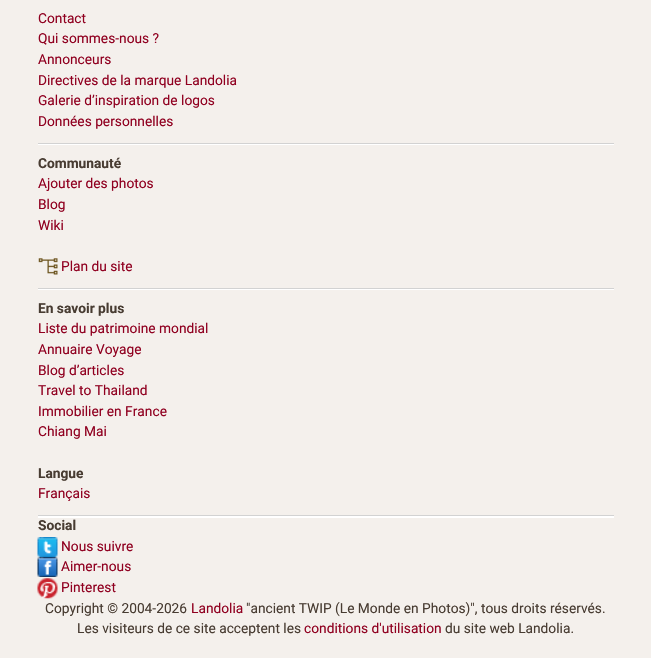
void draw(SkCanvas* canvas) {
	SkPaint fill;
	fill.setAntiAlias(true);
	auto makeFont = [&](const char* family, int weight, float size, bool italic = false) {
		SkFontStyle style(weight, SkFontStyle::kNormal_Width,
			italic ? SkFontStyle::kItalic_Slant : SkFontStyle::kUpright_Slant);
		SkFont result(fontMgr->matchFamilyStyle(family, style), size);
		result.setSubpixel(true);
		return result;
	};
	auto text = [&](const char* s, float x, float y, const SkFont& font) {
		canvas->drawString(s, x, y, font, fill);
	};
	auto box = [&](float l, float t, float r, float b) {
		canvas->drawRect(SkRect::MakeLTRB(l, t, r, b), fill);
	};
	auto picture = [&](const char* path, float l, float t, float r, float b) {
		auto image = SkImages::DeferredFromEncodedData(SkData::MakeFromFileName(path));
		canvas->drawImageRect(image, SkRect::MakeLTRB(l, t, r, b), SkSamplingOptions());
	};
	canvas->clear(0xFFF4F0EC);
	fill.setColor(0xFFFFFFFF);
	canvas->drawPath(SkPathBuilder().moveTo(38, 144).lineTo(38, 145).lineTo(614, 145).lineTo(614, -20).lineTo(614, 144).close().detach(), fill);
	fill.setColor(0xFFD2D2D2);
	box(38, 143, 614, 144);
	fill.setColor(0xFFFFFFFF);
	canvas->drawPath(SkPathBuilder().moveTo(38, 289).lineTo(38, 290).lineTo(614, 290).lineTo(614, 145).lineTo(614, 289).close().detach(), fill);
	fill.setColor(0xFFD2D2D2);
	box(38, 288, 614, 289);
	picture("image0.png", 38, 258, 58, 275);
	fill.setColor(0xFFFFFFFF);
	canvas->drawPath(SkPathBuilder().moveTo(38, 516).lineTo(38, 518).lineTo(614, 518).lineTo(614, 290).lineTo(614, 516).close().detach(), fill);
	fill.setColor(0xFFD2D2D2);
	box(38, 515, 614, 516);
	picture("image1.png", 37, 537, 58, 557);
	picture("image2.png", 37, 557, 58, 577);
	picture("image3.png", 37, 578, 58, 599);
	auto font1 = makeFont("Roboto", 400, 13.75f);
	fill.setColor(0xFF900020);
	text("Contact", 38, 23, font1);
	text("Qui sommes-nous ?", 38, 43, font1);
	text("Annonceurs", 38, 64, font1);
	text("Directives de la marque Landolia", 38, 85, font1);
	text("Galerie d’inspiration de logos", 38, 105, font1);
	text("Données personnelles", 38, 126, font1);
	auto font2 = makeFont("Roboto", 700, 13.75f);
	fill.setColor(0xFF483C32);
	text("Communauté", 38, 168, font2);
	fill.setColor(0xFF900020);
	text("Ajouter des photos", 38, 188, font1);
	text("Blog", 38, 209, font1);
	text("Wiki", 38, 230, font1);
	text("Plan du site", 61, 271, font1);
	fill.setColor(0xFF483C32);
	text("En savoir plus", 38, 313, font2);
	fill.setColor(0xFF900020);
	text("Liste du patrimoine mondial", 38, 333, font1);
	text("Annuaire Voyage", 38, 354, font1);
	text("Blog d’articles", 38, 375, font1);
	text("Travel to Thailand", 38, 395, font1);
	text("Immobilier en France", 38, 416, font1);
	text("Chiang Mai", 38, 436, font1);
	fill.setColor(0xFF483C32);
	text("Langue", 38, 478, font2);
	fill.setColor(0xFF900020);
	text("Français", 38, 498, font1);
	fill.setColor(0xFF483C32);
	text("Social", 38, 530, font2);
	fill.setColor(0xFF900020);
	text("Nous suivre", 61, 551, font1);
	text("Aimer-nous", 61, 571, font1);
	text("Pinterest", 61, 592, font1);
	fill.setColor(0xFF483C32);
	text("Copyright © 2004-2026", 45, 613, font1);
	fill.setColor(0xFF900020);
	text("Landolia", 191, 613, font1);
	fill.setColor(0xFF483C32);
	text("\"ancient TWIP (Le Monde en Photos)\", tous droits réservés.", 246, 613, font1);
	text("Les visiteurs de ce site acceptent les", 77, 633, font1);
	fill.setColor(0xFF900020);
	text("conditions d'utilisation", 304, 633, font1);
	fill.setColor(0xFF483C32);
	text("du site web Landolia.", 445, 633, font1);
}
